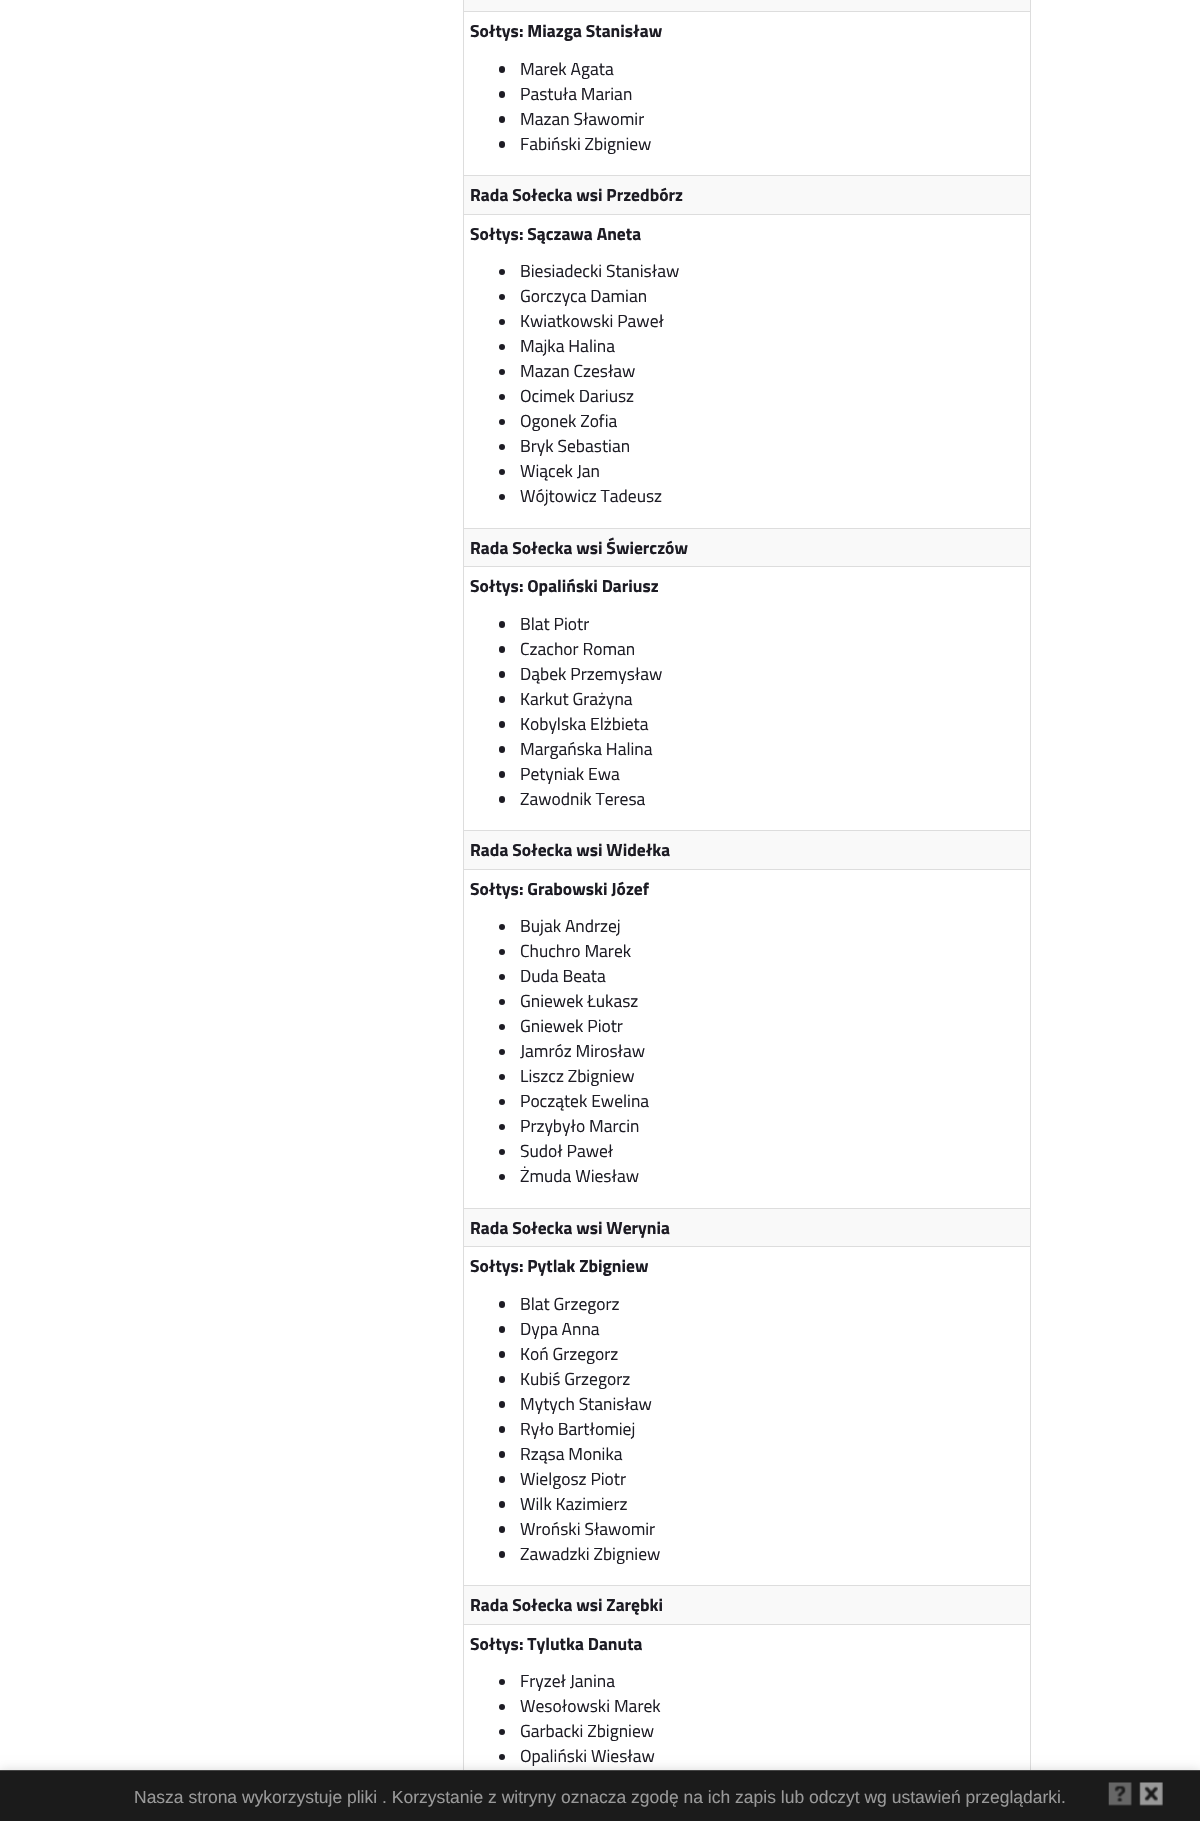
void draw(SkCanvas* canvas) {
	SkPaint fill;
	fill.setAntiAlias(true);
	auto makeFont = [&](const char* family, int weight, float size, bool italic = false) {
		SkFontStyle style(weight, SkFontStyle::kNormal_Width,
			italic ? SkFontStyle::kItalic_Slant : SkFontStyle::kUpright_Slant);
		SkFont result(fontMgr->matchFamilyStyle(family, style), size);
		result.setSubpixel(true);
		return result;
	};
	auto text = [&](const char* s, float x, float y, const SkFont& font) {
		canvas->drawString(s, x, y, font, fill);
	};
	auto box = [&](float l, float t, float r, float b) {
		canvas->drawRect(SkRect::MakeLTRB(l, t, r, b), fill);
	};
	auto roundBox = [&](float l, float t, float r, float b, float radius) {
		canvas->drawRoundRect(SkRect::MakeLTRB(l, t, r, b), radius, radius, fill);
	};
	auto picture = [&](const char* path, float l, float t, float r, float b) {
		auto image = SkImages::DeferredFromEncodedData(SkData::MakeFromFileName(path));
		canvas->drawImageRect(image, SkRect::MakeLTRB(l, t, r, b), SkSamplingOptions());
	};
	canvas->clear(0xFFFFFFFF);
	fill.setColor(0xFFDDDDDD);
	box(1030, 0, 1031, 1770);
	box(463, 0, 464, 1770);
	fill.setColor(0xFFF9F9F9);
	box(464, 0, 1030, 11);
	fill.setColor(0xFFDDDDDD);
	box(463, 11, 1031, 12);
	fill.setColor(0xFF1D1C24);
	roundBox(499, 66, 505, 73, 3);
	roundBox(499, 91, 505, 98, 3);
	roundBox(499, 116, 505, 123, 3);
	roundBox(499, 141, 505, 148, 3);
	fill.setColor(0xFFF9F9F9);
	box(464, 176, 1030, 214);
	fill.setColor(0xFFDDDDDD);
	box(463, 175, 1031, 176);
	box(463, 214, 1031, 215);
	fill.setColor(0xFF1D1C24);
	canvas->drawCircle(502, 272, 3, fill);
	canvas->drawCircle(502, 297, 3, fill);
	canvas->drawCircle(502, 322, 3, fill);
	canvas->drawCircle(502, 347, 3, fill);
	canvas->drawCircle(502, 372, 3, fill);
	canvas->drawCircle(502, 397, 3, fill);
	canvas->drawCircle(502, 422, 3, fill);
	canvas->drawCircle(502, 447, 3, fill);
	canvas->drawCircle(502, 472, 3, fill);
	canvas->drawCircle(502, 497, 3, fill);
	fill.setColor(0xFFF9F9F9);
	box(464, 529, 1030, 566);
	fill.setColor(0xFFDDDDDD);
	box(463, 528, 1031, 529);
	box(463, 566, 1031, 567);
	fill.setColor(0xFF1D1C24);
	roundBox(499, 621, 505, 628, 3);
	roundBox(499, 646, 505, 653, 3);
	roundBox(499, 671, 505, 678, 3);
	roundBox(499, 696, 505, 703, 3);
	roundBox(499, 721, 505, 728, 3);
	roundBox(499, 746, 505, 753, 3);
	roundBox(499, 771, 505, 778, 3);
	roundBox(499, 796, 505, 803, 3);
	fill.setColor(0xFFF9F9F9);
	box(464, 831, 1030, 869);
	fill.setColor(0xFFDDDDDD);
	box(463, 830, 1031, 831);
	box(463, 869, 1031, 870);
	fill.setColor(0xFF1D1C24);
	canvas->drawCircle(502, 927, 3, fill);
	canvas->drawCircle(502, 952, 3, fill);
	canvas->drawCircle(502, 977, 3, fill);
	canvas->drawCircle(502, 1002, 3, fill);
	canvas->drawCircle(502, 1027, 3, fill);
	canvas->drawCircle(502, 1052, 3, fill);
	canvas->drawCircle(502, 1077, 3, fill);
	canvas->drawCircle(502, 1102, 3, fill);
	canvas->drawCircle(502, 1127, 3, fill);
	canvas->drawCircle(502, 1152, 3, fill);
	canvas->drawCircle(502, 1177, 3, fill);
	fill.setColor(0xFFF9F9F9);
	box(464, 1209, 1030, 1246);
	fill.setColor(0xFFDDDDDD);
	box(463, 1208, 1031, 1209);
	box(463, 1246, 1031, 1247);
	fill.setColor(0xFF1D1C24);
	roundBox(499, 1301, 505, 1308, 3);
	roundBox(499, 1326, 505, 1333, 3);
	roundBox(499, 1351, 505, 1358, 3);
	roundBox(499, 1376, 505, 1383, 3);
	roundBox(499, 1401, 505, 1408, 3);
	roundBox(499, 1426, 505, 1433, 3);
	roundBox(499, 1451, 505, 1458, 3);
	roundBox(499, 1476, 505, 1483, 3);
	roundBox(499, 1501, 505, 1508, 3);
	roundBox(499, 1526, 505, 1533, 3);
	roundBox(499, 1551, 505, 1558, 3);
	fill.setColor(0xFFF9F9F9);
	box(464, 1586, 1030, 1624);
	fill.setColor(0xFFDDDDDD);
	box(463, 1585, 1031, 1586);
	box(463, 1624, 1031, 1625);
	fill.setColor(0xFF1D1C24);
	canvas->drawCircle(502, 1682, 3, fill);
	canvas->drawCircle(502, 1707, 3, fill);
	canvas->drawCircle(502, 1732, 3, fill);
	canvas->drawCircle(502, 1757, 3, fill);
	fill.setColor(0x26000000);
	fill.setMaskFilter(SkMaskFilter::MakeBlur(kNormal_SkBlurStyle, 5));
	canvas->drawRect(SkRect::MakeLTRB(0, 1770, 1200, 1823), fill);
	fill.setMaskFilter(nullptr);
	fill.setColor(0xFF1B1B1B);
	box(0, 1771, 1200, 1821);
	fill.setColor(0xFF444444);
	box(0, 1770, 1200, 1771);
	picture("image0.png", 1108, 1782, 1132, 1806);
	picture("image1.png", 1139, 1782, 1163, 1806);
	auto font1 = makeFont("Titillium Web", 700, 17.5f);
	fill.setColor(0xFF1D1C24);
	text("Sołtys: Miazga Stanisław", 470, 37, font1);
	auto font2 = makeFont("Titillium Web", 400, 17.5f);
	text("Marek Agata", 520, 75, font2);
	text("Pastuła Marian", 520, 100, font2);
	text("Mazan Sławomir", 520, 125, font2);
	text("Fabiński Zbigniew", 520, 150, font2);
	text("Rada Sołecka wsi Przedbórz", 470, 201, font1);
	text("Sołtys: Sączawa Aneta", 470, 240, font1);
	text("Biesiadecki Stanisław", 520, 277, font2);
	text("Gorczyca Damian", 520, 302, font2);
	text("Kwiatkowski Paweł", 520, 327, font2);
	text("Majka Halina", 520, 352, font2);
	text("Mazan Czesław", 520, 377, font2);
	text("Ocimek Dariusz", 520, 402, font2);
	text("Ogonek Zofia", 520, 427, font2);
	text("Bryk Sebastian", 520, 452, font2);
	text("Wiącek Jan", 520, 477, font2);
	text("Wójtowicz Tadeusz", 520, 502, font2);
	text("Rada Sołecka wsi Świerczów", 470, 554, font1);
	text("Sołtys: Opaliński Dariusz", 470, 592, font1);
	text("Blat Piotr", 520, 630, font2);
	text("Czachor Roman", 520, 655, font2);
	text("Dąbek Przemysław", 520, 680, font2);
	text("Karkut Grażyna", 520, 705, font2);
	text("Kobylska Elżbieta", 520, 730, font2);
	text("Margańska Halina", 520, 755, font2);
	text("Petyniak Ewa", 520, 780, font2);
	text("Zawodnik Teresa", 520, 805, font2);
	text("Rada Sołecka wsi Widełka", 470, 856, font1);
	text("Sołtys: Grabowski Józef", 470, 895, font1);
	text("Bujak Andrzej", 520, 932, font2);
	text("Chuchro Marek", 520, 957, font2);
	text("Duda Beata", 520, 982, font2);
	text("Gniewek Łukasz", 520, 1007, font2);
	text("Gniewek Piotr", 520, 1032, font2);
	text("Jamróz Mirosław", 520, 1057, font2);
	text("Liszcz Zbigniew", 520, 1082, font2);
	text("Początek Ewelina", 520, 1107, font2);
	text("Przybyło Marcin", 520, 1132, font2);
	text("Sudoł Paweł", 520, 1157, font2);
	text("Żmuda Wiesław", 520, 1182, font2);
	text("Rada Sołecka wsi Werynia", 470, 1234, font1);
	text("Sołtys: Pytlak Zbigniew", 470, 1272, font1);
	text("Blat Grzegorz", 520, 1310, font2);
	text("Dypa Anna", 520, 1335, font2);
	text("Koń Grzegorz", 520, 1360, font2);
	text("Kubiś Grzegorz", 520, 1385, font2);
	text("Mytych Stanisław", 520, 1410, font2);
	text("Ryło Bartłomiej", 520, 1435, font2);
	text("Rząsa Monika", 520, 1460, font2);
	text("Wielgosz Piotr", 520, 1485, font2);
	text("Wilk Kazimierz", 520, 1510, font2);
	text("Wroński Sławomir", 520, 1535, font2);
	text("Zawadzki Zbigniew", 520, 1560, font2);
	text("Rada Sołecka wsi Zarębki", 470, 1611, font1);
	text("Sołtys: Tylutka Danuta", 470, 1650, font1);
	text("Fryzeł Janina", 520, 1687, font2);
	text("Wesołowski Marek", 520, 1712, font2);
	text("Garbacki Zbigniew", 520, 1737, font2);
	text("Opaliński Wiesław", 520, 1762, font2);
	auto font3 = makeFont("Liberation Sans", 400, 17.5f);
	fill.setColor(0xFF999999);
	text("Nasza strona wykorzystuje pliki . Korzystanie z witryny oznacza zgodę na ich zapis lub odczyt wg ustawień przeglądarki.", 134, 1803, font3);
}
